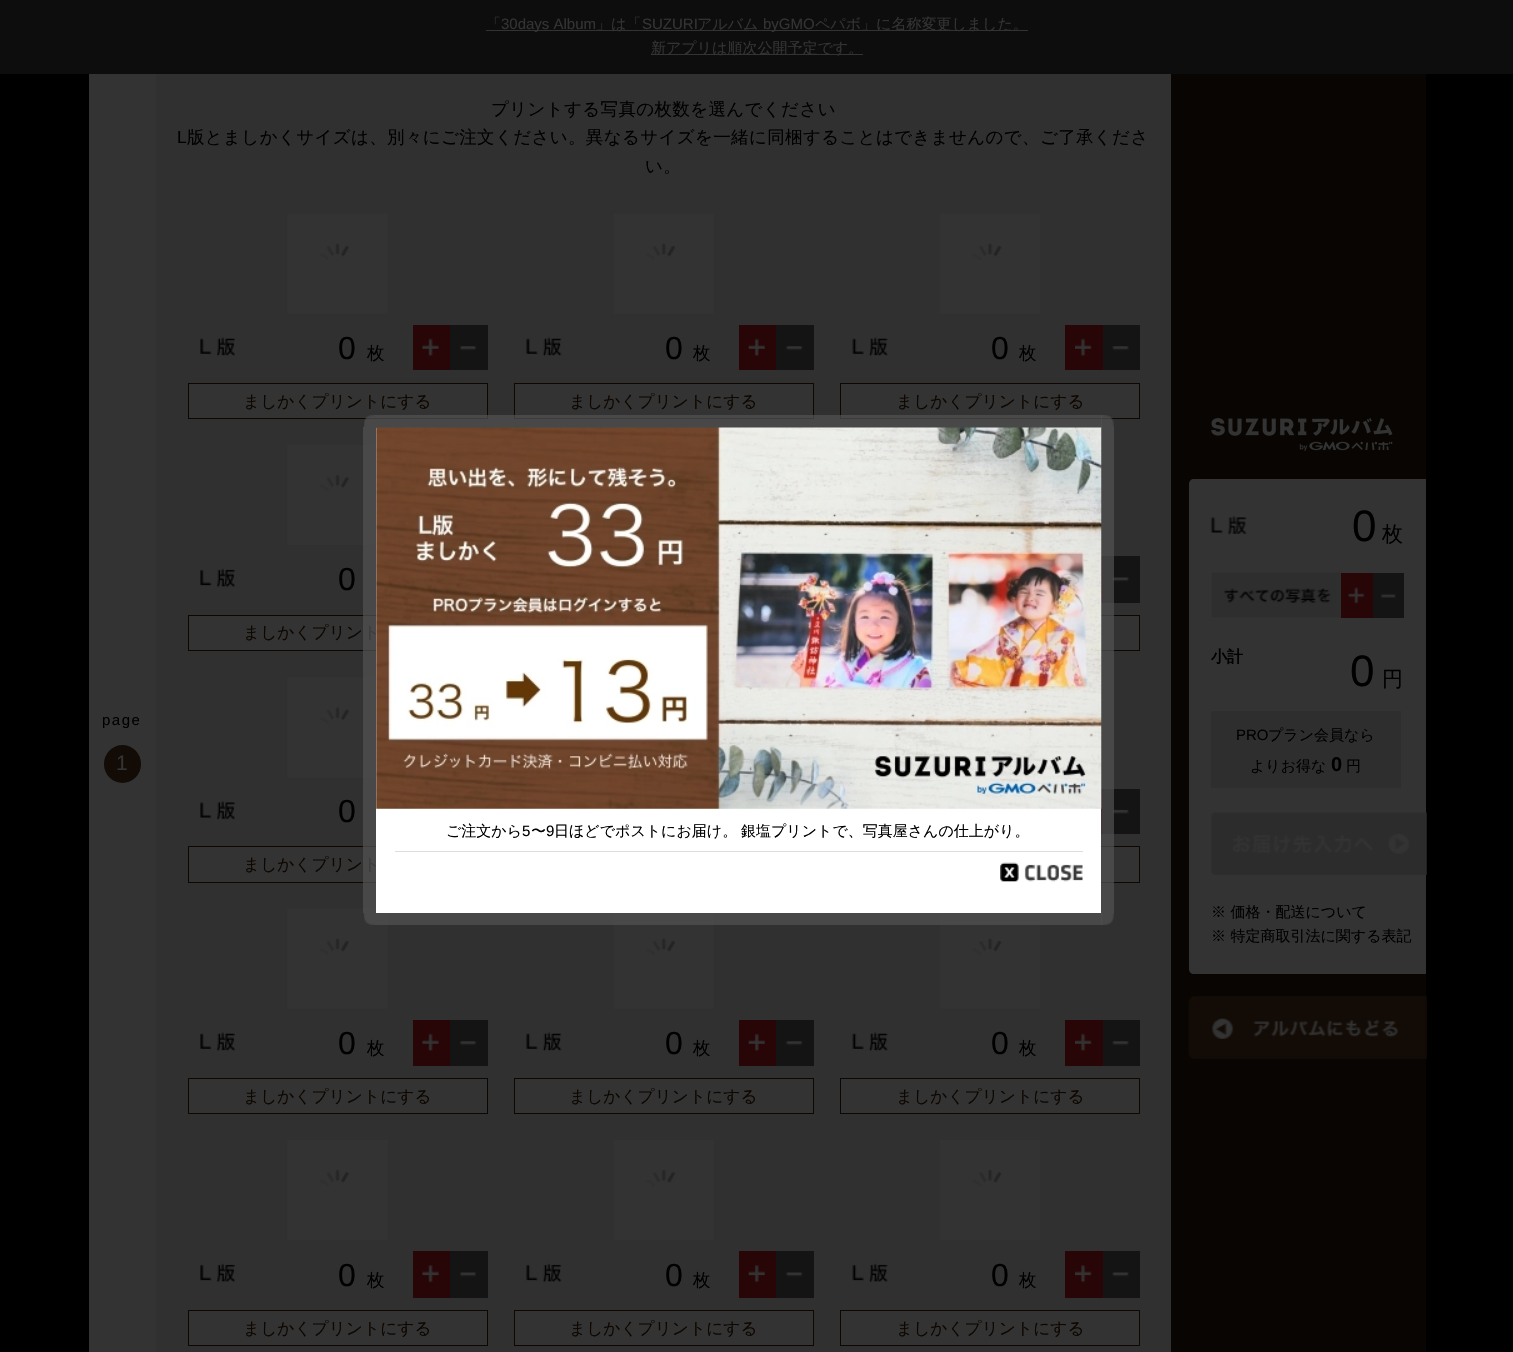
void draw(SkCanvas* canvas) {
	SkPaint fill;
	fill.setAntiAlias(true);
	auto makeFont = [&](const char* family, int weight, float size, bool italic = false) {
		SkFontStyle style(weight, SkFontStyle::kNormal_Width,
			italic ? SkFontStyle::kItalic_Slant : SkFontStyle::kUpright_Slant);
		SkFont result(fontMgr->matchFamilyStyle(family, style), size);
		result.setSubpixel(true);
		return result;
	};
	auto text = [&](const char* s, float x, float y, const SkFont& font) {
		canvas->drawString(s, x, y, font, fill);
	};
	auto spacedText = [&](const char* s, float x, float y, const SkFont& font, const SkPaint& ink, float letter, float word) {
		std::vector<SkGlyphID> glyphs(font.countText(s, strlen(s), SkTextEncoding::kUTF8));
		std::vector<float> xs(glyphs.size());
		font.textToGlyphs(s, strlen(s), SkTextEncoding::kUTF8, glyphs);
		font.getXPos(glyphs, xs, x);
		float extra = 0;
		for (size_t i = 0; i < glyphs.size(); i++) {
			xs[i] += extra;
			extra += letter + word * (glyphs[i] == font.unicharToGlyph(' '));
		}
		canvas->drawTextBlob(SkTextBlob::MakeFromPosHGlyphs(glyphs, xs, y, font), 0, 0, ink);
	};
	auto box = [&](float l, float t, float r, float b) {
		canvas->drawRect(SkRect::MakeLTRB(l, t, r, b), fill);
	};
	auto roundBox = [&](float l, float t, float r, float b, float radius) {
		canvas->drawRoundRect(SkRect::MakeLTRB(l, t, r, b), radius, radius, fill);
	};
	auto picture = [&](const char* path, float l, float t, float r, float b) {
		auto image = SkImages::DeferredFromEncodedData(SkData::MakeFromFileName(path));
		canvas->drawImageRect(image, SkRect::MakeLTRB(l, t, r, b), SkSamplingOptions());
	};
	canvas->clear(0xFF000000);
	fill.setColor(0xFF0D0D0D);
	box(0, 0, 1513, 74);
	fill.setColor(0xFF333333);
	box(486, 30, 1028, 31);
	box(651, 54, 863, 55);
	fill.setColor(0xFF303030);
	box(156, 74, 1171, 1352);
	fill.setColor(0xFF333333);
	box(89, 74, 156, 1352);
	picture("image0.png", 287, 213, 388, 314);
	picture("image1.png", 200, 337, 235, 357);
	fill.setColor(0xFF280507);
	box(413, 325, 450, 370);
	picture("image2.png", 422, 338, 439, 357);
	fill.setColor(0xFF141414);
	box(450, 325, 488, 370);
	picture("image3.png", 460, 346, 477, 351);
	fill.setColor(0xFF333333);
	canvas->drawRect(SkRect::MakeLTRB(188.5f, 383.5f, 487.5f, 418.5f), fill);
	fill.setStyle(SkPaint::kStroke_Style);
	fill.setStrokeWidth(1);
	fill.setColor(0xFF0E0701);
	canvas->drawRect(SkRect::MakeLTRB(188.5f, 383.5f, 487.5f, 418.5f), fill);
	picture("image4.png", 613, 213, 714, 314);
	picture("image5.png", 526, 337, 562, 357);
	fill.setStyle(SkPaint::kFill_Style);
	fill.setColor(0xFF280507);
	box(739, 325, 776, 370);
	picture("image6.png", 748, 338, 765, 357);
	fill.setColor(0xFF141414);
	box(776, 325, 814, 370);
	picture("image7.png", 786, 346, 803, 351);
	fill.setColor(0xFF333333);
	canvas->drawRect(SkRect::MakeLTRB(514.5f, 383.5f, 813.5f, 418.5f), fill);
	fill.setStyle(SkPaint::kStroke_Style);
	fill.setColor(0xFF0E0701);
	canvas->drawRect(SkRect::MakeLTRB(514.5f, 383.5f, 813.5f, 418.5f), fill);
	picture("image8.png", 940, 213, 1040, 314);
	picture("image9.png", 852, 337, 888, 357);
	fill.setStyle(SkPaint::kFill_Style);
	fill.setColor(0xFF280507);
	box(1065, 325, 1103, 370);
	picture("image10.png", 1075, 338, 1092, 357);
	fill.setColor(0xFF141414);
	box(1103, 325, 1140, 370);
	picture("image11.png", 1112, 346, 1129, 351);
	fill.setColor(0xFF333333);
	canvas->drawRect(SkRect::MakeLTRB(840.5f, 383.5f, 1139.5f, 418.5f), fill);
	fill.setStyle(SkPaint::kStroke_Style);
	fill.setColor(0xFF0E0701);
	canvas->drawRect(SkRect::MakeLTRB(840.5f, 383.5f, 1139.5f, 418.5f), fill);
	picture("image12.png", 287, 445, 376, 545);
	picture("image13.png", 200, 568, 235, 588);
	fill.setStyle(SkPaint::kFill_Style);
	fill.setColor(0xFF333333);
	box(189, 616, 376, 650);
	fill.setStyle(SkPaint::kStroke_Style);
	fill.setColor(0xFF0E0701);
	canvas->drawRect(SkRect::MakeLTRB(188.5f, 615.5f, 487.5f, 650.5f), fill);
	fill.setStyle(SkPaint::kFill_Style);
	fill.setColor(0xFF280507);
	box(1101, 556, 1103, 603);
	fill.setColor(0xFF141414);
	box(1103, 556, 1140, 603);
	picture("image14.png", 1112, 577, 1129, 582);
	fill.setColor(0xFF333333);
	box(1101, 616, 1139, 650);
	fill.setStyle(SkPaint::kStroke_Style);
	fill.setColor(0xFF0E0701);
	canvas->drawRect(SkRect::MakeLTRB(840.5f, 615.5f, 1139.5f, 650.5f), fill);
	picture("image15.png", 287, 677, 376, 778);
	picture("image16.png", 200, 801, 235, 820);
	fill.setStyle(SkPaint::kFill_Style);
	fill.setColor(0xFF333333);
	box(189, 847, 376, 882);
	fill.setStyle(SkPaint::kStroke_Style);
	fill.setColor(0xFF0E0701);
	canvas->drawRect(SkRect::MakeLTRB(188.5f, 846.5f, 487.5f, 882.5f), fill);
	fill.setStyle(SkPaint::kFill_Style);
	fill.setColor(0xFF280507);
	box(1101, 789, 1103, 834);
	fill.setColor(0xFF141414);
	box(1103, 789, 1140, 834);
	picture("image17.png", 1112, 809, 1129, 814);
	fill.setColor(0xFF333333);
	box(1101, 847, 1139, 882);
	fill.setStyle(SkPaint::kStroke_Style);
	fill.setColor(0xFF0E0701);
	canvas->drawRect(SkRect::MakeLTRB(840.5f, 846.5f, 1139.5f, 882.5f), fill);
	picture("image0.png", 287, 908, 388, 1009);
	picture("image1.png", 200, 1032, 235, 1052);
	fill.setStyle(SkPaint::kFill_Style);
	fill.setColor(0xFF280507);
	box(413, 1020, 450, 1066);
	picture("image2.png", 422, 1033, 439, 1052);
	fill.setColor(0xFF141414);
	box(450, 1020, 488, 1066);
	picture("image3.png", 460, 1041, 477, 1046);
	fill.setColor(0xFF333333);
	canvas->drawRect(SkRect::MakeLTRB(188.5f, 1078.5f, 487.5f, 1113.5f), fill);
	fill.setStyle(SkPaint::kStroke_Style);
	fill.setColor(0xFF0E0701);
	canvas->drawRect(SkRect::MakeLTRB(188.5f, 1078.5f, 487.5f, 1113.5f), fill);
	picture("image18.png", 613, 913, 714, 1009);
	picture("image5.png", 526, 1032, 562, 1052);
	fill.setStyle(SkPaint::kFill_Style);
	fill.setColor(0xFF280507);
	box(739, 1020, 776, 1066);
	picture("image6.png", 748, 1033, 765, 1052);
	fill.setColor(0xFF141414);
	box(776, 1020, 814, 1066);
	picture("image7.png", 786, 1041, 803, 1046);
	fill.setColor(0xFF333333);
	canvas->drawRect(SkRect::MakeLTRB(514.5f, 1078.5f, 813.5f, 1113.5f), fill);
	fill.setStyle(SkPaint::kStroke_Style);
	fill.setColor(0xFF0E0701);
	canvas->drawRect(SkRect::MakeLTRB(514.5f, 1078.5f, 813.5f, 1113.5f), fill);
	picture("image19.png", 940, 913, 1040, 1009);
	picture("image9.png", 852, 1032, 888, 1052);
	fill.setStyle(SkPaint::kFill_Style);
	fill.setColor(0xFF280507);
	box(1065, 1020, 1103, 1066);
	picture("image10.png", 1075, 1033, 1092, 1052);
	fill.setColor(0xFF141414);
	box(1103, 1020, 1140, 1066);
	picture("image11.png", 1112, 1041, 1129, 1046);
	fill.setColor(0xFF333333);
	canvas->drawRect(SkRect::MakeLTRB(840.5f, 1078.5f, 1139.5f, 1113.5f), fill);
	fill.setStyle(SkPaint::kStroke_Style);
	fill.setColor(0xFF0E0701);
	canvas->drawRect(SkRect::MakeLTRB(840.5f, 1078.5f, 1139.5f, 1113.5f), fill);
	picture("image20.png", 287, 1140, 388, 1240);
	picture("image13.png", 200, 1263, 235, 1283);
	fill.setStyle(SkPaint::kFill_Style);
	fill.setColor(0xFF280507);
	box(413, 1251, 450, 1298);
	picture("image21.png", 422, 1265, 439, 1283);
	fill.setColor(0xFF141414);
	box(450, 1251, 488, 1298);
	picture("image22.png", 460, 1272, 477, 1277);
	fill.setColor(0xFF333333);
	canvas->drawRect(SkRect::MakeLTRB(188.5f, 1310.5f, 487.5f, 1345.5f), fill);
	fill.setStyle(SkPaint::kStroke_Style);
	fill.setColor(0xFF0E0701);
	canvas->drawRect(SkRect::MakeLTRB(188.5f, 1310.5f, 487.5f, 1345.5f), fill);
	picture("image23.png", 613, 1140, 714, 1240);
	picture("image24.png", 526, 1263, 562, 1283);
	fill.setStyle(SkPaint::kFill_Style);
	fill.setColor(0xFF280507);
	box(739, 1251, 776, 1298);
	picture("image25.png", 748, 1265, 765, 1283);
	fill.setColor(0xFF141414);
	box(776, 1251, 814, 1298);
	picture("image26.png", 786, 1272, 803, 1277);
	fill.setColor(0xFF333333);
	canvas->drawRect(SkRect::MakeLTRB(514.5f, 1310.5f, 813.5f, 1345.5f), fill);
	fill.setStyle(SkPaint::kStroke_Style);
	fill.setColor(0xFF0E0701);
	canvas->drawRect(SkRect::MakeLTRB(514.5f, 1310.5f, 813.5f, 1345.5f), fill);
	picture("image27.png", 940, 1140, 1040, 1240);
	picture("image28.png", 852, 1263, 888, 1283);
	fill.setStyle(SkPaint::kFill_Style);
	fill.setColor(0xFF280507);
	box(1065, 1251, 1103, 1298);
	picture("image29.png", 1075, 1265, 1092, 1283);
	fill.setColor(0xFF141414);
	box(1103, 1251, 1140, 1298);
	picture("image14.png", 1112, 1272, 1129, 1277);
	fill.setColor(0xFF333333);
	canvas->drawRect(SkRect::MakeLTRB(840.5f, 1310.5f, 1139.5f, 1345.5f), fill);
	fill.setStyle(SkPaint::kStroke_Style);
	fill.setColor(0xFF0E0701);
	canvas->drawRect(SkRect::MakeLTRB(840.5f, 1310.5f, 1139.5f, 1345.5f), fill);
	fill.setStyle(SkPaint::kFill_Style);
	fill.setColor(0xFF080503);
	box(1171, 74, 1426, 1352);
	fill.setColor(0xFF130C06);
	roundBox(104, 745, 141, 783, 18.5f);
	picture("image30.png", 1211, 418, 1393, 451);
	fill.setColor(0xFF333333);
	canvas->drawPath(SkPathBuilder().moveTo(1194, 479).lineTo(1426, 479).lineTo(1426, 974).lineTo(1194, 974).cubicTo(1191, 974, 1189, 972, 1189, 969).lineTo(1189, 484).cubicTo(1189, 481, 1191, 479, 1194, 479).close().detach(), fill);
	picture("image31.png", 1210, 516, 1247, 535);
	picture("image32.png", 1211, 572, 1342, 618);
	fill.setColor(0xFF280507);
	box(1341, 573, 1373, 618);
	picture("image33.png", 1348, 587, 1365, 604);
	fill.setColor(0xFF141414);
	box(1373, 573, 1404, 618);
	picture("image34.png", 1380, 593, 1396, 598);
	fill.setColor(0xFF2E2E2E);
	box(1211, 711, 1401, 788);
	picture("image35.png", 1210, 812, 1427, 875);
	picture("image36.png", 1188, 996, 1427, 1059);
	picture("image37.png", 364, 415, 376, 427);
	fill.setColor(0xB0535353);
	box(376, 415, 1102, 428);
	picture("image38.png", 1101, 415, 1114, 427);
	box(1101, 427, 1114, 913);
	picture("image41.png", 364, 913, 376, 925);
	auto font1 = makeFont("WenQuanYi Zen Hei", 500, 15);
	fill.setColor(0xFF333333);
	text("「", 486, 29, font1);
	auto font2 = makeFont("Liberation Sans", 400, 15);
	text("30days Album", 501, 29, font2);
	text("」は「", 596, 29, font1);
	text("SUZURI", 642, 29, font2);
	text("アルバム", 697, 29, font1);
	text("byGMO", 763, 29, font2);
	text("ペパボ」に名称変更しました。", 815, 29, font1);
	text("新アプリは順次公開予定です。", 651, 53, font1);
	auto font3 = makeFont("WenQuanYi Zen Hei", 500, 17.5f);
	fill.setColor(0xFF000000);
	spacedText("プリントする写真の枚数を選んでください", 491, 115, font3, fill, 0.35f, 0);
	auto font4 = makeFont("Liberation Sans", 400, 17.5f);
	spacedText("L", 177, 143, font4, fill, 0.35f, 0);
	spacedText("版とましかくサイズは、別々にご注文ください。異なるサイズを一緒に同梱することはできませんので、ご了承くださ", 187, 143, font3, fill, 0.35f, 0);
	spacedText("い。", 645, 172, font3, fill, 0.35f, 0);
	auto font5 = makeFont("Liberation Sans", 400, 32);
	text("0", 338, 359, font5);
	text("枚", 367, 359, font3);
	auto font6 = makeFont("WenQuanYi Zen Hei", 500, 16.75f);
	fill.setColor(0xFF0E0701);
	text("ましかくプリントにする", 243, 407, font6);
	fill.setColor(0xFF000000);
	text("0", 665, 359, font5);
	text("枚", 693, 359, font3);
	fill.setColor(0xFF0E0701);
	text("ましかくプリントにする", 569, 407, font6);
	fill.setColor(0xFF000000);
	text("0", 991, 359, font5);
	text("枚", 1019, 359, font3);
	fill.setColor(0xFF0E0701);
	text("ましかくプリントにする", 896, 407, font6);
	fill.setColor(0xFF000000);
	text("0", 338, 590, font5);
	fill.setColor(0xFF0E0701);
	text("ましかくプリント", 243, 638, font6);
	fill.setColor(0xFF000000);
	text("0", 338, 822, font5);
	fill.setColor(0xFF0E0701);
	text("ましかくプリント", 243, 870, font6);
	fill.setColor(0xFF000000);
	text("0", 338, 1054, font5);
	text("枚", 367, 1054, font3);
	fill.setColor(0xFF0E0701);
	text("ましかくプリントにする", 243, 1102, font6);
	fill.setColor(0xFF000000);
	text("0", 665, 1054, font5);
	text("枚", 693, 1054, font3);
	fill.setColor(0xFF0E0701);
	text("ましかくプリントにする", 569, 1102, font6);
	fill.setColor(0xFF000000);
	text("0", 991, 1054, font5);
	text("枚", 1019, 1054, font3);
	fill.setColor(0xFF0E0701);
	text("ましかくプリントにする", 896, 1102, font6);
	fill.setColor(0xFF000000);
	text("0", 338, 1286, font5);
	text("枚", 367, 1286, font3);
	fill.setColor(0xFF0E0701);
	text("ましかくプリントにする", 243, 1334, font6);
	fill.setColor(0xFF000000);
	text("0", 665, 1286, font5);
	text("枚", 693, 1286, font3);
	fill.setColor(0xFF0E0701);
	text("ましかくプリントにする", 569, 1334, font6);
	fill.setColor(0xFF000000);
	text("0", 991, 1286, font5);
	text("枚", 1019, 1286, font3);
	fill.setColor(0xFF0E0701);
	text("ましかくプリントにする", 896, 1334, font6);
	fill.setColor(0xFF000000);
	spacedText("page", 102, 725, font2, fill, 1.5f, 0);
	auto font7 = makeFont("Liberation Sans", 400, 21);
	fill.setColor(0xFF333333);
	text("1", 116, 770, font7);
	auto font8 = makeFont("Liberation Sans", 400, 44);
	fill.setColor(0xFF000000);
	spacedText("0", 1352, 541, font8, fill, 2, 0);
	auto font9 = makeFont("WenQuanYi Zen Hei", 500, 21);
	text("枚", 1382, 541, font9);
	auto font10 = makeFont("WenQuanYi Zen Hei", 700, 16);
	text("小計", 1211, 662, font10);
	spacedText("0", 1350, 686, font8, fill, 2, 0);
	text("円", 1382, 686, font9);
	text("PRO", 1236, 740, font2);
	text("プラン会員なら", 1268, 740, font1);
	text("よりお得な", 1250, 771, font1);
	auto font11 = makeFont("Liberation Sans", 700, 20);
	text("0", 1331, 771, font11);
	text("円", 1346, 771, font1);
	text("※ 価格・配送について", 1211, 917, font1);
	text("※ 特定商取引法に関する表記", 1211, 941, font1);
	fill.setColor(0xB0535353);
	box(363, 427, 377, 913);
	box(376, 912, 1102, 925);
	fill.setColor(0xFFFFFFFF);
	box(376, 428, 1101, 913);
	picture("image40.png", 1000, 862, 1083, 882);
	fill.setColor(0xFF000000);
	text("銀塩プリントで、写真屋さんの仕上がり。", 741, 836, font1);
	text("日ほどでポストにお届け。", 554, 836, font1);
	text("9", 546, 836, font2);
	text("〜", 531, 836, font1);
	text("5", 522, 836, font2);
	text("ご注文から", 446, 836, font1);
	fill.setColor(0xFFDDDDDD);
	box(395, 851, 1083, 852);
	picture("image39.png", 376, 427, 1102, 809);
	picture("image42.png", 1101, 913, 1114, 925);
}
